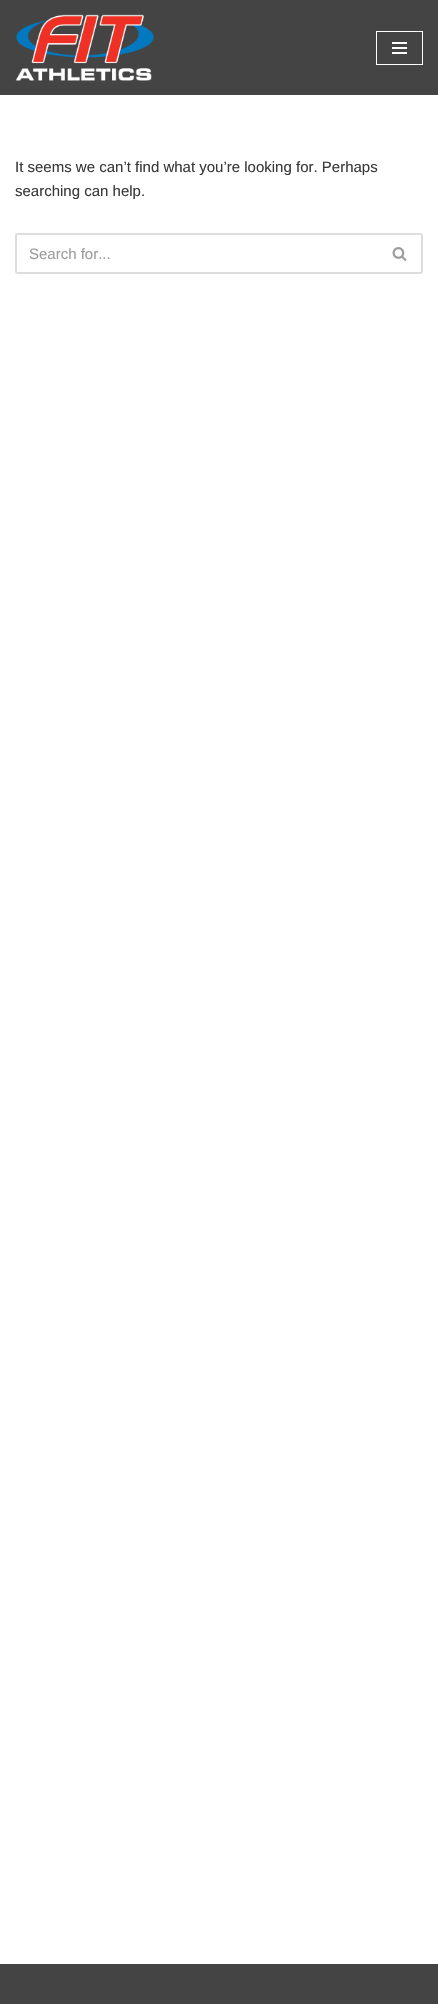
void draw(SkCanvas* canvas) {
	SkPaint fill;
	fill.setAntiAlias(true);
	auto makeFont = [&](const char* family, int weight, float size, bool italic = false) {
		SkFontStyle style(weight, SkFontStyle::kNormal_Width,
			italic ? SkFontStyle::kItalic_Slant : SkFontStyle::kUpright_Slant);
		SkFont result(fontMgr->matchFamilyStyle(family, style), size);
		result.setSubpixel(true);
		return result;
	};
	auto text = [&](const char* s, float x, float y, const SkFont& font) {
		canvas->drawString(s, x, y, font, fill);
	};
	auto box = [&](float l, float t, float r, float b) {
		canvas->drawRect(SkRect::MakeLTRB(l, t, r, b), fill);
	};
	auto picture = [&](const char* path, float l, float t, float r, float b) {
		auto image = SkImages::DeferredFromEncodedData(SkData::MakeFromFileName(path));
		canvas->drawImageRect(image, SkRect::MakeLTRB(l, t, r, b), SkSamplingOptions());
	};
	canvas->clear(0xFFFFFFFF);
	fill.setColor(0xFF444444);
	box(0, 0, 438, 95);
	picture("image0.png", 15, 14, 154, 81);
	fill.setStyle(SkPaint::kStroke_Style);
	fill.setStrokeWidth(1);
	fill.setColor(0xFFFFFFFF);
	canvas->drawRect(SkRect::MakeLTRB(376.5f, 31.5f, 422.5f, 64.5f), fill);
	fill.setStyle(SkPaint::kFill_Style);
	box(392, 42, 407, 44);
	box(392, 47, 407, 49);
	box(392, 52, 407, 54);
	fill.setColor(0xFFDDDDDD);
	canvas->drawPath(SkPathBuilder(SkPathFillType::kEvenOdd).moveTo(18, 233).lineTo(378, 233).lineTo(378, 274).lineTo(18, 274).cubicTo(16, 274, 15, 273, 15, 271).lineTo(15, 236).cubicTo(15, 234, 16, 233, 18, 233).close().moveTo(18, 235).lineTo(378, 235).lineTo(378, 272).lineTo(18, 272).cubicTo(17, 272, 17, 272, 17, 271).lineTo(17, 236).cubicTo(17, 235, 17, 235, 18, 235).close().detach(), fill);
	canvas->drawPath(SkPathBuilder(SkPathFillType::kEvenOdd).moveTo(378, 233).lineTo(420, 233).cubicTo(422, 233, 423, 234, 423, 236).lineTo(423, 271).cubicTo(423, 273, 422, 274, 420, 274).lineTo(378, 274).close().moveTo(378, 235).lineTo(420, 235).cubicTo(421, 235, 421, 235, 421, 236).lineTo(421, 271).cubicTo(421, 272, 421, 272, 420, 272).lineTo(378, 272).close().detach(), fill);
	picture("image1.png", 392, 247, 407, 261);
	fill.setColor(0xFF444444);
	box(0, 1964, 438, 2004);
	auto font1 = makeFont("Liberation Sans", 400, 15);
	fill.setColor(0xFF393939);
	text("It seems we can’t find what you’re looking for. Perhaps", 15, 172, font1);
	text("searching can help.", 15, 196, font1);
	fill.setColor(0xFF9C9C9C);
	text("Search for...", 29, 259, font1);
}
